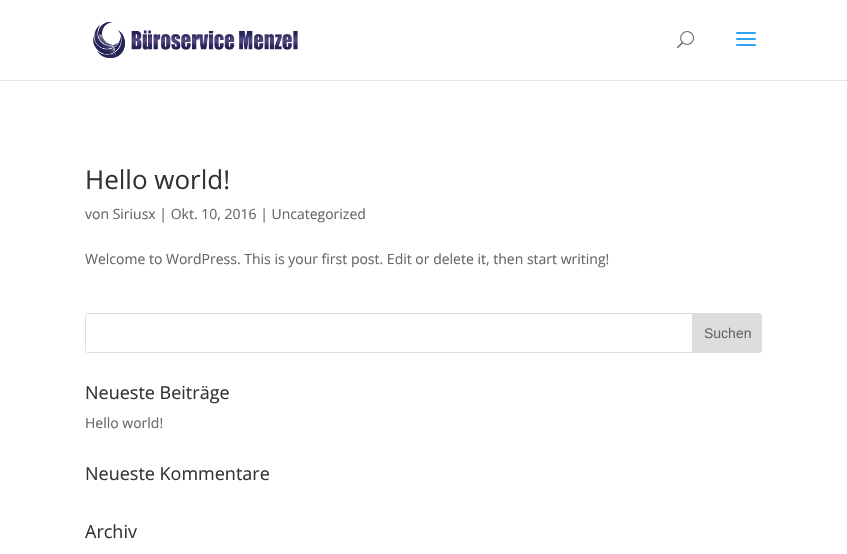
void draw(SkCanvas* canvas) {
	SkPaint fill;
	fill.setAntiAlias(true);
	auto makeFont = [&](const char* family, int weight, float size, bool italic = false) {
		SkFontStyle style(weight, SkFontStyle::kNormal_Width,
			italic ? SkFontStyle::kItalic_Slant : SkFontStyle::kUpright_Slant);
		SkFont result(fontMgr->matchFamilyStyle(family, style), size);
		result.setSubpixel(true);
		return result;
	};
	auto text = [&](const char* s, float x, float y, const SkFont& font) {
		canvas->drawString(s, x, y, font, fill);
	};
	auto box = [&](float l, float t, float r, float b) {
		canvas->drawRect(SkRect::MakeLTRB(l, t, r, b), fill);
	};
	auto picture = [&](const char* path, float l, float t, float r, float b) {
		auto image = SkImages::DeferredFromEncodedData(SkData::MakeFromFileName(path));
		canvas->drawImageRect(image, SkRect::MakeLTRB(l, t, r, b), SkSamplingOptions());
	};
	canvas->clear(0xFFFFFFFF);
	fill.setColor(0xFFE6E6E6);
	box(0, 80, 847, 81);
	picture("image0.png", 93, 22, 298, 58);
	picture("image1.png", 677, 31, 694, 49);
	picture("image2.png", 736, 32, 756, 46);
	fill.setStyle(SkPaint::kStroke_Style);
	fill.setStrokeWidth(1);
	fill.setColor(0xFFDDDDDD);
	canvas->drawRoundRect(SkRect::MakeLTRB(85.5f, 313.5f, 761.5f, 352.5f), 2.5f, 2.5f, fill);
	fill.setStyle(SkPaint::kFill_Style);
	canvas->drawPath(SkPathBuilder().moveTo(692.5f, 313.5f).lineTo(759, 313.5f).cubicTo(760.5f, 313.5f, 761.5f, 314.5f, 761.5f, 316).lineTo(761.5f, 350).cubicTo(761.5f, 351.5f, 760.5f, 352.5f, 759, 352.5f).lineTo(692.5f, 352.5f).close().detach(), fill);
	fill.setStyle(SkPaint::kStroke_Style);
	canvas->drawPath(SkPathBuilder().moveTo(692.5f, 313.5f).lineTo(759, 313.5f).cubicTo(760.5f, 313.5f, 761.5f, 314.5f, 761.5f, 316).lineTo(761.5f, 350).cubicTo(761.5f, 351.5f, 760.5f, 352.5f, 759, 352.5f).lineTo(692.5f, 352.5f).close().detach(), fill);
	auto font1 = makeFont("Open Sans", 400, 26);
	fill.setStyle(SkPaint::kFill_Style);
	fill.setColor(0xFF333333);
	text("Hello world!", 85, 189, font1);
	auto font2 = makeFont("Open Sans", 400, 14);
	fill.setColor(0xFF666666);
	text("von Siriusx | Okt. 10, 2016 | Uncategorized", 85, 219, font2);
	text("Welcome to WordPress. This is your first post. Edit or delete it, then start writing!", 85, 264, font2);
	auto font3 = makeFont("Liberation Sans", 400, 14);
	text("Suchen", 704, 338, font3);
	auto font4 = makeFont("Open Sans", 400, 18);
	fill.setColor(0xFF333333);
	text("Neueste Beiträge", 85, 399, font4);
	fill.setColor(0xFF666666);
	text("Hello world!", 85, 428, font2);
	fill.setColor(0xFF333333);
	text("Neueste Kommentare", 85, 480, font4);
	text("Archiv", 85, 538, font4);
}
